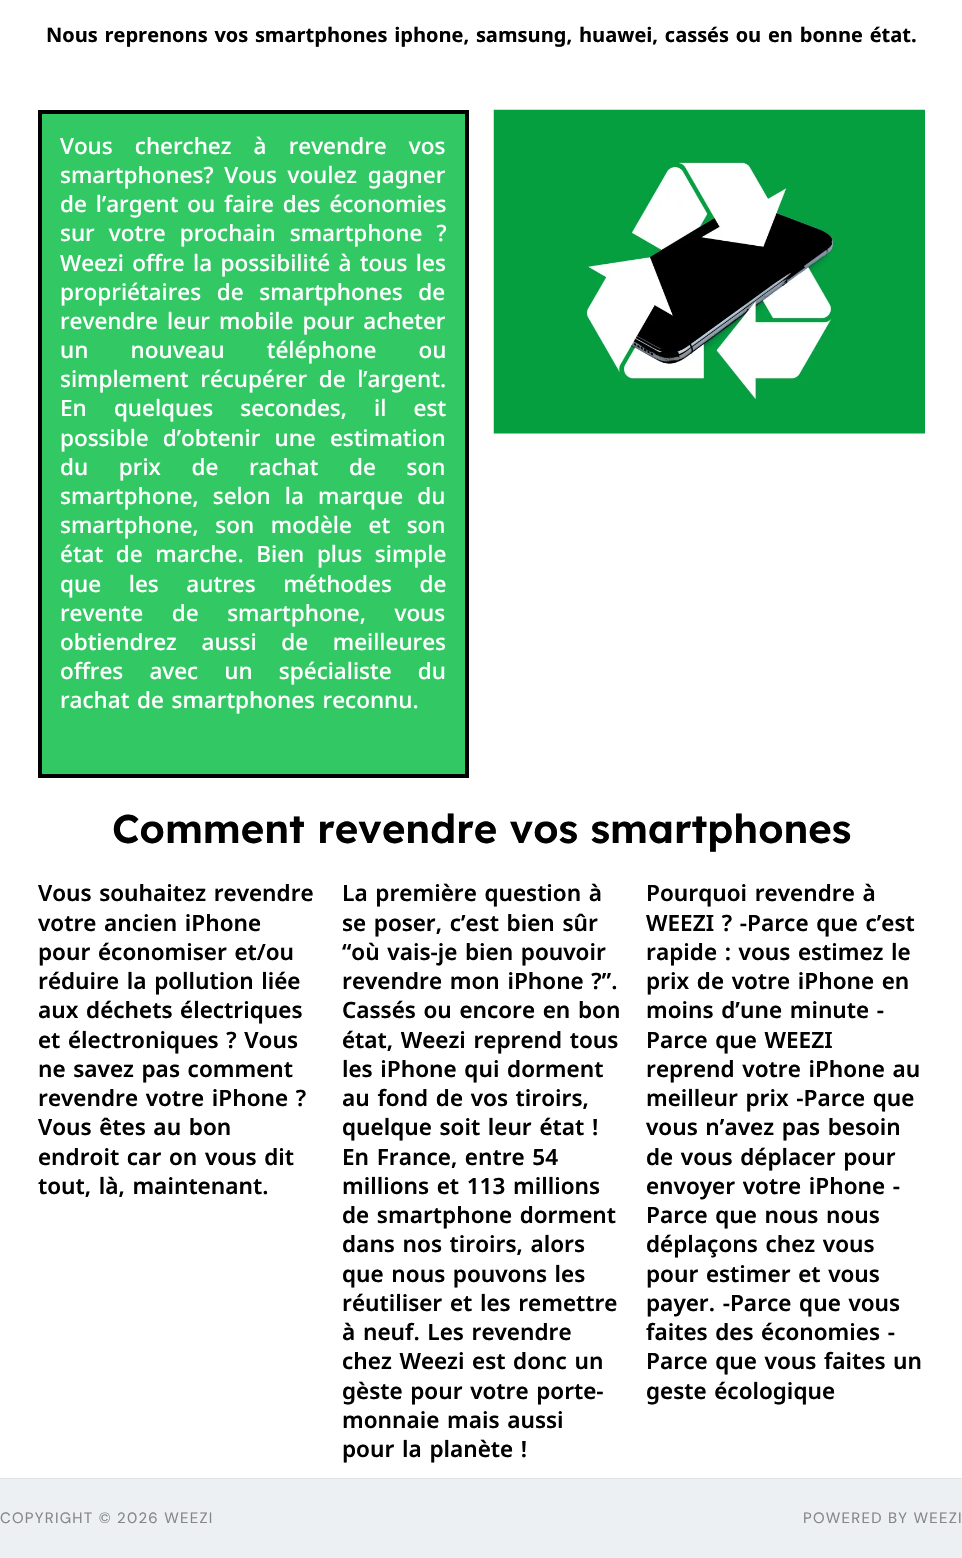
void draw(SkCanvas* canvas) {
	SkPaint fill;
	fill.setAntiAlias(true);
	auto makeFont = [&](const char* family, int weight, float size, bool italic = false) {
		SkFontStyle style(weight, SkFontStyle::kNormal_Width,
			italic ? SkFontStyle::kItalic_Slant : SkFontStyle::kUpright_Slant);
		SkFont result(fontMgr->matchFamilyStyle(family, style), size);
		result.setSubpixel(true);
		return result;
	};
	auto text = [&](const char* s, float x, float y, const SkFont& font) {
		canvas->drawString(s, x, y, font, fill);
	};
	auto spacedText = [&](const char* s, float x, float y, const SkFont& font, const SkPaint& ink, float letter, float word) {
		std::vector<SkGlyphID> glyphs(font.countText(s, strlen(s), SkTextEncoding::kUTF8));
		std::vector<float> xs(glyphs.size());
		font.textToGlyphs(s, strlen(s), SkTextEncoding::kUTF8, glyphs);
		font.getXPos(glyphs, xs, x);
		float extra = 0;
		for (size_t i = 0; i < glyphs.size(); i++) {
			xs[i] += extra;
			extra += letter + word * (glyphs[i] == font.unicharToGlyph(' '));
		}
		canvas->drawTextBlob(SkTextBlob::MakeFromPosHGlyphs(glyphs, xs, y, font), 0, 0, ink);
	};
	auto box = [&](float l, float t, float r, float b) {
		canvas->drawRect(SkRect::MakeLTRB(l, t, r, b), fill);
	};
	auto picture = [&](const char* path, float l, float t, float r, float b) {
		auto image = SkImages::DeferredFromEncodedData(SkData::MakeFromFileName(path));
		canvas->drawImageRect(image, SkRect::MakeLTRB(l, t, r, b), SkSamplingOptions());
	};
	canvas->clear(0xFFFFFFFF);
	fill.setColor(0xFF32C965);
	canvas->drawRect(SkRect::MakeLTRB(40, 112, 467, 776), fill);
	fill.setStyle(SkPaint::kStroke_Style);
	fill.setStrokeWidth(4);
	fill.setColor(0xFF000000);
	canvas->drawRect(SkRect::MakeLTRB(40, 112, 467, 776), fill);
	picture("image0.png", 493, 109, 925, 434);
	fill.setStyle(SkPaint::kFill_Style);
	fill.setColor(0xFFECF0F2);
	box(0, 1479, 962, 1558);
	fill.setColor(0xFFE1E4E6);
	box(0, 1478, 962, 1479);
	auto font1 = makeFont("Noto Kufi Arabic", 700, 20);
	fill.setColor(0xFF000000);
	text("Nous reprenons vos smartphones iphone, samsung, huawei, cassés ou en bonne état.", 46, 42, font1);
	auto font2 = makeFont("Noto Kufi Arabic", 500, 22.5f);
	fill.setColor(0xFFFFFFFF);
	spacedText("Vous cherchez à revendre vos", 60, 154, font2, fill, 0, 14.5f);
	spacedText("smartphones? Vous voulez gagner", 60, 183, font2, fill, 0, 3);
	spacedText("de l’argent ou faire des économies", 60, 212, font2, fill, 0, 1.25f);
	spacedText("sur votre prochain smartphone ?", 60, 241, font2, fill, 0, 6.5f);
	spacedText("Weezi offre la possibilité à tous les", 60, 271, font2, fill, 0, 0.75f);
	spacedText("propriétaires de smartphones de", 60, 300, font2, fill, 0, 8);
	spacedText("revendre leur mobile pour acheter", 60, 329, font2, fill, 0, 1.5f);
	spacedText("un nouveau téléphone ou", 60, 358, font2, fill, 0, 34.5f);
	spacedText("simplement récupérer de l’argent.", 60, 387, font2, fill, 0, 4);
	spacedText("En quelques secondes, il est", 60, 416, font2, fill, 0, 19.5f);
	spacedText("possible d’obtenir une estimation", 60, 446, font2, fill, 0, 6.5f);
	spacedText("du prix de rachat de son", 60, 475, font2, fill, 0, 23);
	spacedText("smartphone, selon la marque du", 60, 504, font2, fill, 0, 6.5f);
	spacedText("smartphone, son modèle et son", 60, 533, font2, fill, 0, 9);
	spacedText("état de marche. Bien plus simple", 60, 562, font2, fill, 0, 5);
	spacedText("que les autres méthodes de", 60, 592, font2, fill, 0, 20);
	spacedText("revente de smartphone, vous", 60, 621, font2, fill, 0, 21);
	spacedText("obtiendrez aussi de meilleures", 60, 650, font2, fill, 0, 17);
	spacedText("offres avec un spécialiste du", 60, 679, font2, fill, 0, 18.5f);
	text("rachat de smartphones reconnu.", 60, 708, font2);
	auto font3 = makeFont("Lexend", 600, 40);
	fill.setColor(0xFF000000);
	text("Comment revendre vos smartphones", 112, 843, font3);
	auto font4 = makeFont("Noto Kufi Arabic", 600, 22.5f);
	text("Vous souhaitez revendre", 38, 901, font4);
	text("votre ancien iPhone", 38, 931, font4);
	text("pour économiser et/ou", 38, 960, font4);
	text("réduire la pollution liée", 38, 989, font4);
	text("aux déchets électriques", 38, 1018, font4);
	text("et électroniques ? Vous", 38, 1048, font4);
	text("ne savez pas comment", 38, 1077, font4);
	text("revendre votre iPhone ?", 38, 1106, font4);
	text("Vous êtes au bon", 38, 1135, font4);
	text("endroit car on vous dit", 38, 1165, font4);
	text("tout, là, maintenant.", 38, 1194, font4);
	text("La première question à", 342, 901, font4);
	text("se poser, c’est bien sûr", 342, 931, font4);
	text("“où vais-je bien pouvoir", 342, 960, font4);
	text("revendre mon iPhone ?”.", 342, 989, font4);
	text("Cassés ou encore en bon", 342, 1018, font4);
	text("état, Weezi reprend tous", 342, 1048, font4);
	text("les iPhone qui dorment", 342, 1077, font4);
	text("au fond de vos tiroirs,", 342, 1106, font4);
	text("quelque soit leur état !", 342, 1135, font4);
	text("En France, entre 54", 342, 1165, font4);
	text("millions et 113 millions", 342, 1194, font4);
	text("de smartphone dorment", 342, 1223, font4);
	text("dans nos tiroirs, alors", 342, 1252, font4);
	text("que nous pouvons les", 342, 1282, font4);
	text("réutiliser et les remettre", 342, 1311, font4);
	text("à neuf. Les revendre", 342, 1340, font4);
	text("chez Weezi est donc un", 342, 1369, font4);
	text("gèste pour votre porte-", 342, 1399, font4);
	text("monnaie mais aussi", 342, 1428, font4);
	text("pour la planète !", 342, 1457, font4);
	text("Pourquoi revendre à", 646, 901, font4);
	text("WEEZI ? -Parce que c’est", 646, 931, font4);
	text("rapide : vous estimez le", 646, 960, font4);
	text("prix de votre iPhone en", 646, 989, font4);
	text("moins d’une minute -", 646, 1018, font4);
	text("Parce que WEEZI", 646, 1048, font4);
	text("reprend votre iPhone au", 646, 1077, font4);
	text("meilleur prix -Parce que", 646, 1106, font4);
	text("vous n’avez pas besoin", 646, 1135, font4);
	text("de vous déplacer pour", 646, 1165, font4);
	text("envoyer votre iPhone -", 646, 1194, font4);
	text("Parce que nous nous", 646, 1223, font4);
	text("déplaçons chez vous", 646, 1252, font4);
	text("pour estimer et vous", 646, 1282, font4);
	text("payer. -Parce que vous", 646, 1311, font4);
	text("faites des économies -", 646, 1340, font4);
	text("Parce que vous faites un", 646, 1369, font4);
	text("geste écologique", 646, 1399, font4);
	auto font5 = makeFont("DM Sans", 400, 15);
	fill.setColor(0xFF868686);
	spacedText("COPYRIGHT © 2026 WEEZI", 0, 1523, font5, fill, 1.25f, 0);
	spacedText("POWERED BY WEEZI", 803, 1523, font5, fill, 1.25f, 0);
}
